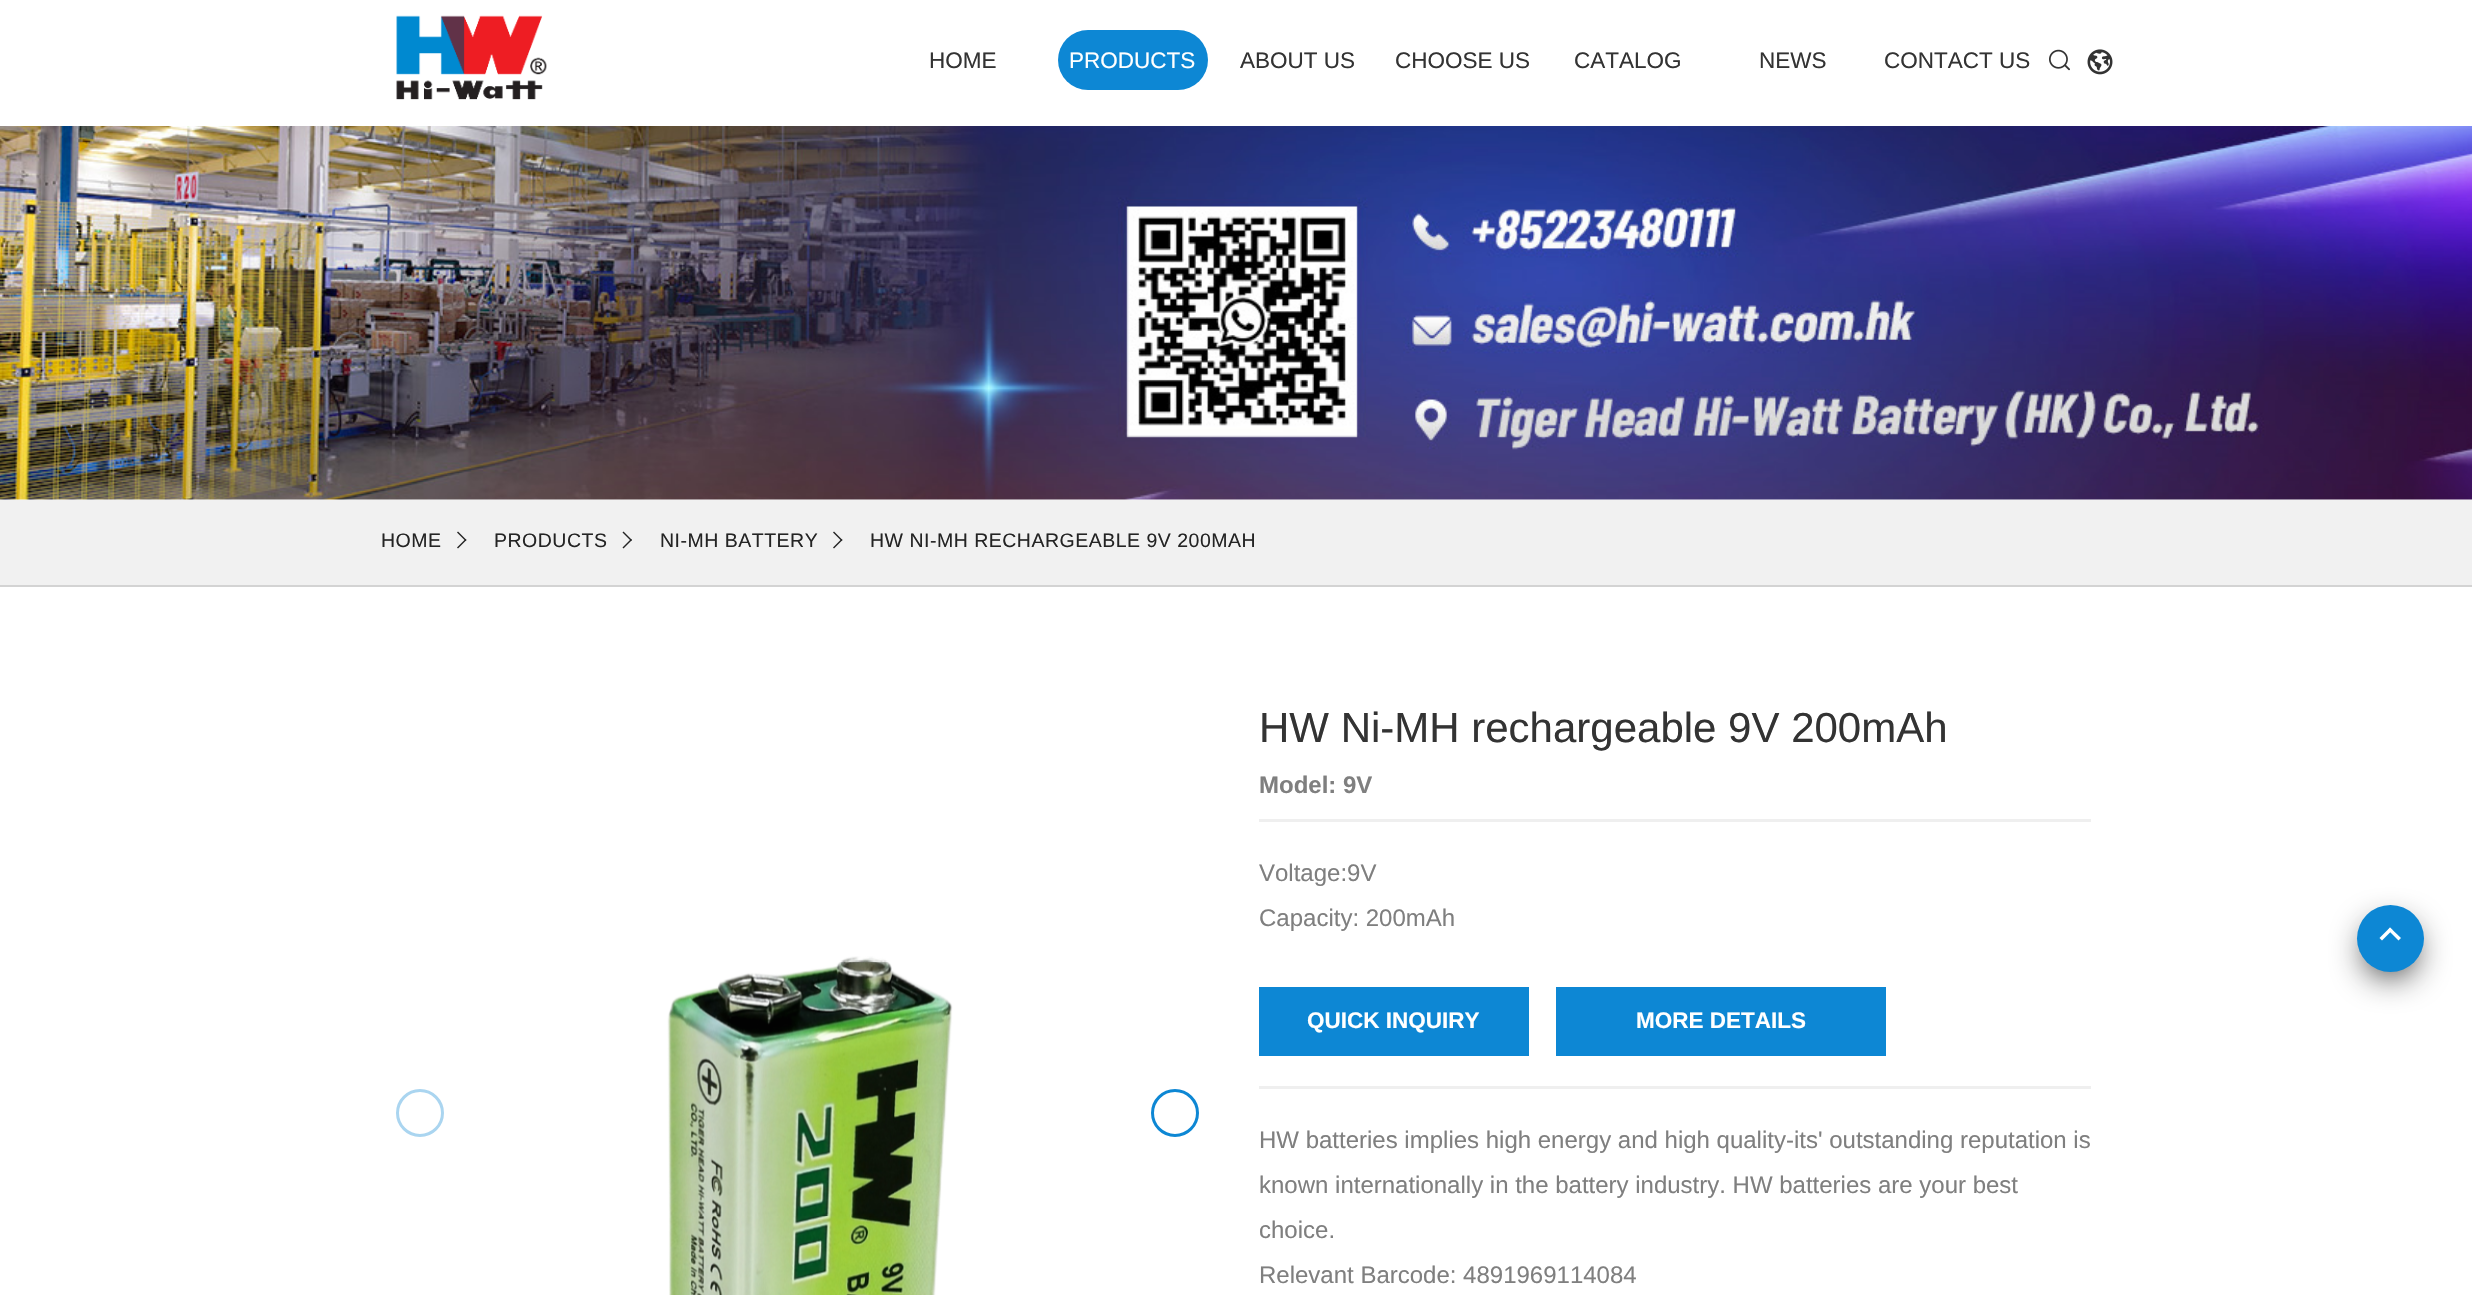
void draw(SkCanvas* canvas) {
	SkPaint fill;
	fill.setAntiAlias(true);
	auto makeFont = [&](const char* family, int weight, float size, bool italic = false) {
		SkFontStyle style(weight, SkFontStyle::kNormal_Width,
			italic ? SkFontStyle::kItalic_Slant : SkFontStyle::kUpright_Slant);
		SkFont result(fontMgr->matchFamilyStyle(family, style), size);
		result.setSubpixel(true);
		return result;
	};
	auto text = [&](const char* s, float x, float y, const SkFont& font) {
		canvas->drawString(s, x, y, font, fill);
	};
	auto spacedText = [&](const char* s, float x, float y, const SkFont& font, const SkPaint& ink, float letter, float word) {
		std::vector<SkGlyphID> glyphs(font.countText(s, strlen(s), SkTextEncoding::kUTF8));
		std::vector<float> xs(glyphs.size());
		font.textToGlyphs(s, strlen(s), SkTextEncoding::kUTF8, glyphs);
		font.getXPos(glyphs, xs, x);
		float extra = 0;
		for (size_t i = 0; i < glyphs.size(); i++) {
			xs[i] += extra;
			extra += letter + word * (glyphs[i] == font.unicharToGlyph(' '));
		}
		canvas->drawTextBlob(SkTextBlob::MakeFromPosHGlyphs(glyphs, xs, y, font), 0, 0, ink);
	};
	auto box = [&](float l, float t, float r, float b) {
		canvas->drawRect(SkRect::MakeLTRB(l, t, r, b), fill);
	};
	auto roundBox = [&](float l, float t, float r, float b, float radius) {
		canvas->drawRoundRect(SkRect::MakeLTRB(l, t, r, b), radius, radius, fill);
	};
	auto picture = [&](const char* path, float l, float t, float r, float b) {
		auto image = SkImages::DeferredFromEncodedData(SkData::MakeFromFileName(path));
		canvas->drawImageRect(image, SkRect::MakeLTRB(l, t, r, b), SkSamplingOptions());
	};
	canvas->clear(0xFFFFFFFF);
	picture("image0.png", 396, 15, 547, 100);
	fill.setColor(0xFF0D87D4);
	roundBox(1058, 30, 1208, 90, 30);
	picture("image1.png", 2049, 49, 2070, 71);
	picture("image2.png", 2087, 49, 2113, 75);
	picture("image3.png", 0, 126, 2472, 500);
	fill.setColor(0xFFF1F1F1);
	box(0, 500, 2472, 585);
	fill.setColor(0xFFD3D3D3);
	box(0, 585, 2472, 587);
	fill.setColor(0xFF242424);
	canvas->drawPath(SkPathBuilder().moveTo(465.5f, 541).lineTo(457, 532.5f).lineTo(458, 531.5f).lineTo(466.5f, 540).close().detach(), fill);
	canvas->drawPath(SkPathBuilder().moveTo(458, 548.5f).lineTo(457, 547.5f).lineTo(465.5f, 539).lineTo(466.5f, 540).close().detach(), fill);
	canvas->drawPath(SkPathBuilder().moveTo(631, 541).lineTo(622.5f, 532.5f).lineTo(623.5f, 531.5f).lineTo(632, 540).close().detach(), fill);
	canvas->drawPath(SkPathBuilder().moveTo(623.5f, 548.5f).lineTo(622.5f, 547.5f).lineTo(631, 539).lineTo(632, 540).close().detach(), fill);
	canvas->drawPath(SkPathBuilder().moveTo(841.5f, 541).lineTo(833, 532.5f).lineTo(834, 531.5f).lineTo(842.5f, 540).close().detach(), fill);
	canvas->drawPath(SkPathBuilder().moveTo(834, 548.5f).lineTo(833, 547.5f).lineTo(841.5f, 539).lineTo(842.5f, 540).close().detach(), fill);
	fill.setStyle(SkPaint::kStroke_Style);
	fill.setStrokeWidth(3);
	fill.setColor(0xFFAAD5F0);
	canvas->drawCircle(420, 1113, 22.5f, fill);
	picture("image4.png", 667, 956, 953, 1295);
	fill.setColor(0xFF0D87D4);
	canvas->drawCircle(1175, 1113, 22.5f, fill);
	fill.setStyle(SkPaint::kFill_Style);
	fill.setColor(0xFFEFEFEF);
	box(1259, 819, 2091, 822);
	box(1259, 1086, 2091, 1089);
	fill.setColor(0xFF0D87D4);
	box(1259, 987, 1529, 1056);
	box(1556, 987, 1886, 1056);
	fill.setColor(0xFF1B1B1B);
	fill.setMaskFilter(SkMaskFilter::MakeBlur(kNormal_SkBlurStyle, 17));
	canvas->drawRoundRect(SkRect::MakeLTRB(2366, 926, 2415, 975), 24.5f, 24.5f, fill);
	fill.setMaskFilter(nullptr);
	fill.setColor(0xFF0D87D4);
	canvas->drawCircle(2390.5f, 938.5f, 33.5f, fill);
	fill.setColor(0xFFFFFFFF);
	canvas->drawPath(SkPathBuilder().moveTo(2382, 940.5f).lineTo(2379.5f, 938).lineTo(2390, 927.5f).lineTo(2392.5f, 930).close().detach(), fill);
	canvas->drawPath(SkPathBuilder().moveTo(2398.5f, 940.5f).lineTo(2388, 930).lineTo(2390, 927.5f).lineTo(2401, 938).close().detach(), fill);
	auto font1 = makeFont("Liberation Sans", 400, 22.5f);
	fill.setColor(0xFF333333);
	text("HOME", 929, 68, font1);
	fill.setColor(0xFFFFFFFF);
	text("PRODUCTS", 1069, 68, font1);
	fill.setColor(0xFF333333);
	text("ABOUT US", 1240, 68, font1);
	text("CHOOSE US", 1395, 68, font1);
	text("CATALOG", 1574, 68, font1);
	text("NEWS", 1759, 68, font1);
	text("CONTACT US", 1884, 68, font1);
	auto font2 = makeFont("Liberation Sans", 400, 19.5f);
	fill.setColor(0xFF242424);
	spacedText("HOME", 381, 547, font2, fill, 0.5f, 0);
	spacedText("PRODUCTS", 494, 547, font2, fill, 0.5f, 0);
	spacedText("NI-MH BATTERY", 660, 547, font2, fill, 0.5f, 0);
	spacedText("HW NI-MH RECHARGEABLE 9V 200MAH", 870, 547, font2, fill, 0.5f, 0);
	auto font3 = makeFont("Liberation Sans", 400, 42);
	fill.setColor(0xFF333333);
	text("HW Ni-MH rechargeable 9V 200mAh", 1259, 742, font3);
	auto font4 = makeFont("Liberation Sans", 700, 24);
	fill.setColor(0xFF7F7F7F);
	text("Model: 9V", 1259, 793, font4);
	auto font5 = makeFont("Liberation Sans", 400, 24);
	text("Voltage:9V", 1259, 881, font5);
	text("Capacity: 200mAh", 1259, 926, font5);
	auto font6 = makeFont("Liberation Sans", 700, 22.5f);
	fill.setColor(0xFFFFFFFF);
	text("QUICK INQUIRY", 1307, 1028, font6);
	text("MORE DETAILS", 1636, 1028, font6);
	fill.setColor(0xFF7F7F7F);
	text("HW batteries implies high energy and high quality-its' outstanding reputation is", 1259, 1148, font5);
	text("known internationally in the battery industry. HW batteries are your best", 1259, 1193, font5);
	text("choice.", 1259, 1238, font5);
	text("Relevant Barcode: 4891969114084", 1259, 1283, font5);
}
